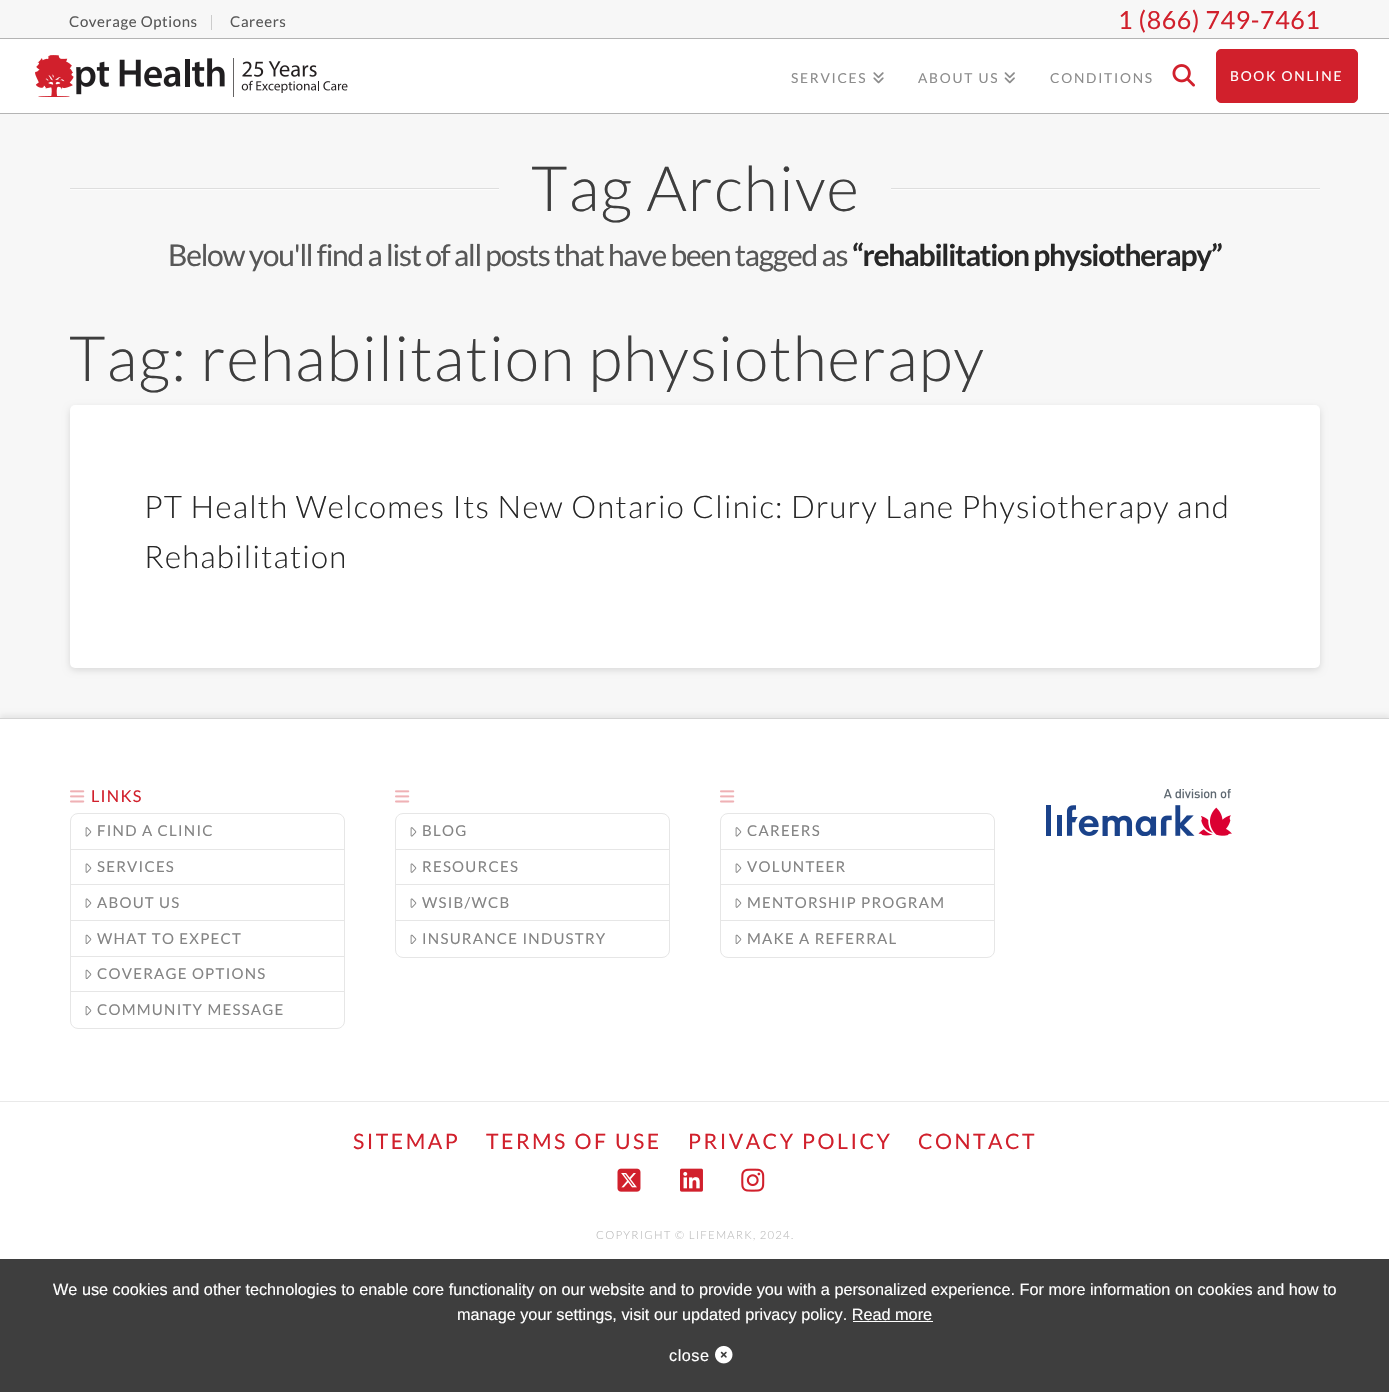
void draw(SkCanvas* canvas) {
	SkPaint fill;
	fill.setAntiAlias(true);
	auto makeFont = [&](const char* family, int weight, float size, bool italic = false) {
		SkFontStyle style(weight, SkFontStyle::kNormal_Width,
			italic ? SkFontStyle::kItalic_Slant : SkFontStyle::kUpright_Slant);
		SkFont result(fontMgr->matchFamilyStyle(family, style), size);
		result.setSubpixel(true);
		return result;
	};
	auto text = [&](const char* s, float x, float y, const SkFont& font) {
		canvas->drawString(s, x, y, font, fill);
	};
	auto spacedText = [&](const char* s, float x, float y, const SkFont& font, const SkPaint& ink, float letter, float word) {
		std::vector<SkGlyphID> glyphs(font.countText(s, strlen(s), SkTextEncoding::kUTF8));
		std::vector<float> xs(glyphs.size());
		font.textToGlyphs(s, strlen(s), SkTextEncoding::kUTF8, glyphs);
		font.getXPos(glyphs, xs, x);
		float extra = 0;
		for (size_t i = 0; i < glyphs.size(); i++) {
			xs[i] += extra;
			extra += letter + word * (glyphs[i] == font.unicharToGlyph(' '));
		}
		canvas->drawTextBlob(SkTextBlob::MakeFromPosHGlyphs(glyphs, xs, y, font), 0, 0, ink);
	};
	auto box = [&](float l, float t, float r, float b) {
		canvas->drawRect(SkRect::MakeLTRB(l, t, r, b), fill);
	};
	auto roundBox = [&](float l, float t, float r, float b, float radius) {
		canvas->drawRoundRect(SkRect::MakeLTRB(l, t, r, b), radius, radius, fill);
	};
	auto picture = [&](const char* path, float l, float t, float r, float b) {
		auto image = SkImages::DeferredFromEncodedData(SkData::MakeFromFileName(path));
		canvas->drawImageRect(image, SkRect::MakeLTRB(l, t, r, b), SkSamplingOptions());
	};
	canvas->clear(0xFFF7F7F7);
	fill.setColor(0xFFB4B4B4);
	box(0, 38, 1389, 39);
	fill.setColor(0xFFCCCCCC);
	box(211, 15, 212, 30);
	fill.setColor(0xFFFFFFFF);
	box(0, 39, 1389, 113);
	fill.setColor(0xFFB4B4B4);
	box(0, 113, 1389, 114);
	picture("image0.png", 35, 55, 348, 97);
	picture("image1.png", 873, 72, 884, 84);
	picture("image2.png", 1004, 72, 1015, 84);
	picture("image3.png", 1172, 64, 1195, 87);
	fill.setColor(0xFFD1202C);
	canvas->drawRoundRect(SkRect::MakeLTRB(1216.5f, 49.5f, 1357.5f, 102.5f), 4.5f, 4.5f, fill);
	fill.setStyle(SkPaint::kStroke_Style);
	fill.setStrokeWidth(1);
	canvas->drawRoundRect(SkRect::MakeLTRB(1216.5f, 49.5f, 1357.5f, 102.5f), 4.5f, 4.5f, fill);
	fill.setStyle(SkPaint::kFill_Style);
	fill.setColor(0xFFFDFDFD);
	box(70, 189, 499, 190);
	fill.setColor(0xFFDEDEDE);
	box(70, 188, 499, 189);
	fill.setColor(0xFFFDFDFD);
	box(891, 189, 1320, 190);
	fill.setColor(0xFFDEDEDE);
	box(891, 188, 1320, 189);
	fill.setColor(0x21000000);
	fill.setMaskFilter(SkMaskFilter::MakeBlur(kNormal_SkBlurStyle, 3.5f));
	canvas->drawRoundRect(SkRect::MakeLTRB(70, 408, 1320, 670), 5, 5, fill);
	fill.setMaskFilter(nullptr);
	fill.setColor(0xFFFFFFFF);
	roundBox(70, 405, 1320, 668, 5);
	fill.setColor(0x12000000);
	fill.setMaskFilter(SkMaskFilter::MakeBlur(kNormal_SkBlurStyle, 2.5f));
	canvas->drawRect(SkRect::MakeLTRB(0, 715, 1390, 1099), fill);
	fill.setMaskFilter(nullptr);
	fill.setColor(0xFFFFFFFF);
	box(0, 719, 1389, 1101);
	fill.setColor(0xFFD4D4D4);
	box(0, 718, 1389, 719);
	picture("image4.png", 70, 790, 85, 803);
	fill.setStyle(SkPaint::kStroke_Style);
	fill.setColor(0xFFE6E6E6);
	canvas->drawRoundRect(SkRect::MakeLTRB(70.5f, 813.5f, 344.5f, 1028.5f), 7.5f, 7.5f, fill);
	fill.setStyle(SkPaint::kFill_Style);
	box(71, 849, 344, 850);
	picture("image5.png", 85, 827, 92, 837);
	box(71, 884, 344, 885);
	picture("image6.png", 85, 863, 92, 873);
	box(71, 920, 344, 921);
	picture("image6.png", 85, 898, 92, 908);
	box(71, 956, 344, 957);
	picture("image7.png", 85, 934, 92, 944);
	box(71, 991, 344, 992);
	picture("image7.png", 85, 969, 92, 979);
	picture("image8.png", 85, 1006, 92, 1016);
	picture("image4.png", 395, 790, 410, 803);
	fill.setStyle(SkPaint::kStroke_Style);
	canvas->drawRoundRect(SkRect::MakeLTRB(395.5f, 813.5f, 669.5f, 957.5f), 7.5f, 7.5f, fill);
	fill.setStyle(SkPaint::kFill_Style);
	box(396, 849, 669, 850);
	picture("image5.png", 410, 827, 417, 837);
	box(396, 884, 669, 885);
	picture("image6.png", 410, 863, 417, 873);
	box(396, 920, 669, 921);
	picture("image6.png", 410, 898, 417, 908);
	picture("image7.png", 410, 934, 417, 944);
	picture("image4.png", 720, 790, 735, 803);
	fill.setStyle(SkPaint::kStroke_Style);
	canvas->drawRoundRect(SkRect::MakeLTRB(720.5f, 813.5f, 994.5f, 957.5f), 7.5f, 7.5f, fill);
	fill.setStyle(SkPaint::kFill_Style);
	box(721, 849, 994, 850);
	picture("image5.png", 735, 827, 742, 837);
	box(721, 884, 994, 885);
	picture("image6.png", 735, 863, 742, 873);
	box(721, 920, 994, 921);
	picture("image6.png", 735, 898, 742, 908);
	picture("image7.png", 735, 934, 742, 944);
	picture("image9.png", 1046, 789, 1232, 836);
	fill.setColor(0xFFFFFFFF);
	box(0, 1102, 1389, 1259);
	fill.setColor(0xFFE9E9E9);
	box(0, 1101, 1389, 1102);
	picture("image10.png", 617, 1168, 641, 1192);
	picture("image11.png", 680, 1168, 703, 1192);
	picture("image12.png", 741, 1168, 765, 1192);
	fill.setColor(0xFF3E3E3E);
	box(0, 1259, 1389, 1392);
	fill.setColor(0xFFFFFFFF);
	box(853, 1321, 933, 1322);
	picture("image13.png", 715, 1345, 733, 1364);
	auto font1 = makeFont("Lato", 400, 15);
	fill.setColor(0xFF575757);
	spacedText("Coverage Options", 69, 27, font1, fill, 0.6f, 0);
	spacedText("Careers", 230, 27, font1, fill, 0.6f, 0);
	auto font2 = makeFont("Lato", 400, 25);
	fill.setColor(0xFFD1202C);
	spacedText("1 (866) 749-7461", 1118, 29, font2, fill, 0.6f, 0);
	auto font3 = makeFont("Lato", 400, 13.75f);
	fill.setColor(0xFF8C8C8C);
	spacedText("SERVICES", 791, 83, font3, fill, 1.75f, 0);
	spacedText("ABOUT US", 918, 83, font3, fill, 1.75f, 0);
	spacedText("CONDITIONS", 1050, 83, font3, fill, 1.75f, 0);
	fill.setColor(0xFFFFFFFF);
	spacedText("BOOK ONLINE", 1230, 81, font3, fill, 1.75f, 0);
	auto font4 = makeFont("Lato", 300, 62.5f);
	fill.setColor(0xFF3E3E3E);
	spacedText("Tag Archive", 531, 211, font4, fill, 1.25f, 0);
	auto font5 = makeFont("Lato", 400, 30);
	fill.setColor(0xFF575757);
	spacedText("Below you'll find a list of all posts that have been tagged as", 168, 266, font5, fill, -1.25f, 0);
	auto font6 = makeFont("Lato", 700, 30);
	fill.setColor(0xFF272727);
	spacedText("“rehabilitation physiotherapy”", 852, 266, font6, fill, -1.25f, 0);
	fill.setColor(0xFF3E3E3E);
	spacedText("Tag: rehabilitation physiotherapy", 69, 381, font4, fill, 1.25f, 0);
	auto font7 = makeFont("Lato", 300, 31.25f);
	fill.setColor(0xFF272727);
	spacedText("PT Health Welcomes Its New Ontario Clinic: Drury Lane Physiotherapy and", 144, 518, font7, fill, 1.25f, 0);
	spacedText("Rehabilitation", 144, 568, font7, fill, 1.25f, 0);
	auto font8 = makeFont("Lato", 400, 16.25f);
	fill.setColor(0xFFD1202C);
	spacedText("LINKS", 91, 802, font8, fill, 1.25f, 0);
	fill.setColor(0xFF848484);
	spacedText("FIND A CLINIC", 97, 836, font1, fill, 1.25f, 0);
	spacedText("SERVICES", 97, 872, font1, fill, 1.25f, 0);
	spacedText("ABOUT US", 97, 908, font1, fill, 1.25f, 0);
	spacedText("WHAT TO EXPECT", 97, 944, font1, fill, 1.25f, 0);
	spacedText("COVERAGE OPTIONS", 97, 979, font1, fill, 1.25f, 0);
	spacedText("COMMUNITY MESSAGE", 97, 1015, font1, fill, 1.25f, 0);
	spacedText("BLOG", 422, 836, font1, fill, 1.25f, 0);
	spacedText("RESOURCES", 422, 872, font1, fill, 1.25f, 0);
	spacedText("WSIB/WCB", 422, 908, font1, fill, 1.25f, 0);
	spacedText("INSURANCE INDUSTRY", 422, 944, font1, fill, 1.25f, 0);
	spacedText("CAREERS", 747, 836, font1, fill, 1.25f, 0);
	spacedText("VOLUNTEER", 747, 872, font1, fill, 1.25f, 0);
	spacedText("MENTORSHIP PROGRAM", 747, 908, font1, fill, 1.25f, 0);
	spacedText("MAKE A REFERRAL", 747, 944, font1, fill, 1.25f, 0);
	auto font9 = makeFont("Lato", 400, 21.25f);
	fill.setColor(0xFFD1202C);
	spacedText("SITEMAP", 353, 1149, font9, fill, 2.5f, 0);
	spacedText("TERMS OF USE", 486, 1149, font9, fill, 2.5f, 0);
	spacedText("PRIVACY POLICY", 688, 1149, font9, fill, 2.5f, 0);
	spacedText("CONTACT", 918, 1149, font9, fill, 2.5f, 0);
	auto font10 = makeFont("Lato", 300, 11.25f);
	fill.setColor(0xFFBBBBBB);
	spacedText("COPYRIGHT © LIFEMARK, 2024.", 596, 1239, font10, fill, 1.25f, 0);
	auto font11 = makeFont("Liberation Sans", 400, 16.25f);
	fill.setColor(0xFFFFFFFF);
	text("We use cookies and other technologies to enable core functionality on our website and to provide you with a personalized experience. For more information on cookies and how to", 53, 1295, font11);
	text("manage your settings, visit our updated privacy policy. Read more", 457, 1320, font11);
	spacedText("close", 669, 1361, font11, fill, 0.5f, 0);
}
